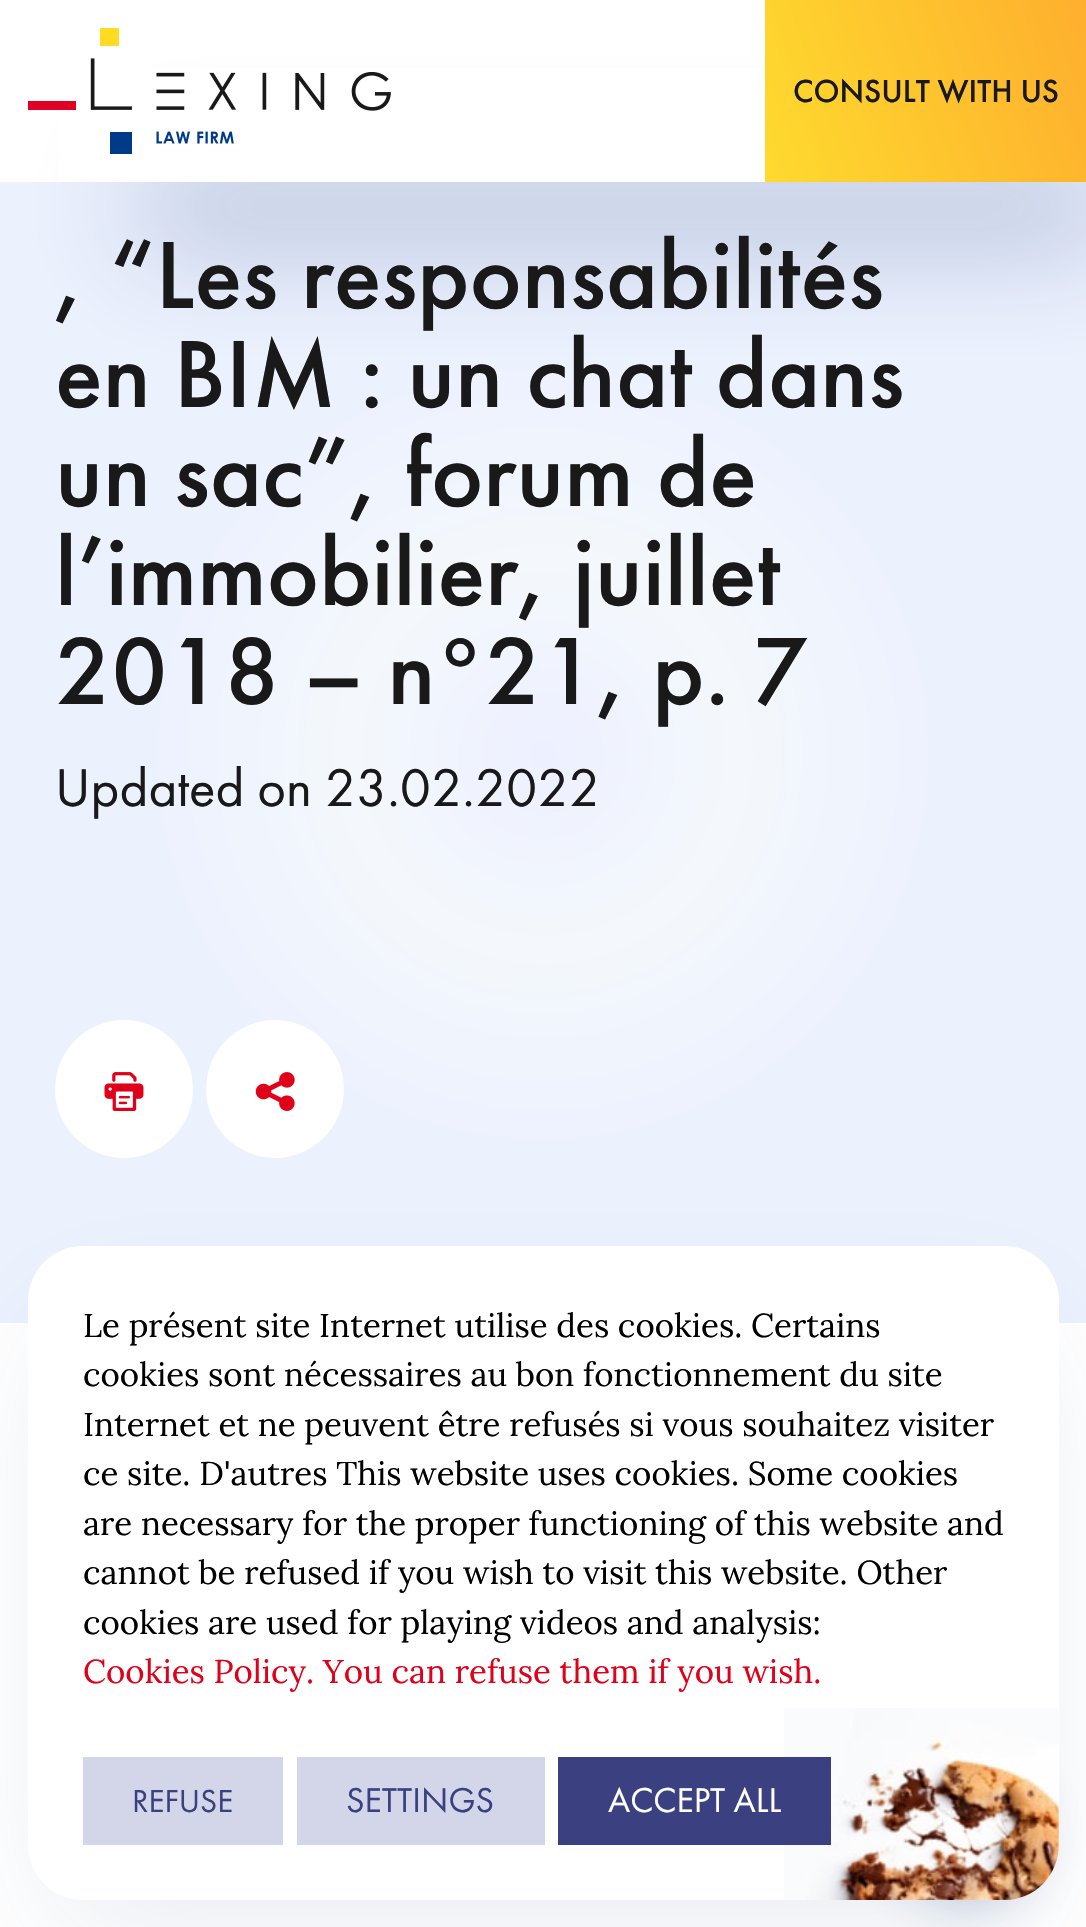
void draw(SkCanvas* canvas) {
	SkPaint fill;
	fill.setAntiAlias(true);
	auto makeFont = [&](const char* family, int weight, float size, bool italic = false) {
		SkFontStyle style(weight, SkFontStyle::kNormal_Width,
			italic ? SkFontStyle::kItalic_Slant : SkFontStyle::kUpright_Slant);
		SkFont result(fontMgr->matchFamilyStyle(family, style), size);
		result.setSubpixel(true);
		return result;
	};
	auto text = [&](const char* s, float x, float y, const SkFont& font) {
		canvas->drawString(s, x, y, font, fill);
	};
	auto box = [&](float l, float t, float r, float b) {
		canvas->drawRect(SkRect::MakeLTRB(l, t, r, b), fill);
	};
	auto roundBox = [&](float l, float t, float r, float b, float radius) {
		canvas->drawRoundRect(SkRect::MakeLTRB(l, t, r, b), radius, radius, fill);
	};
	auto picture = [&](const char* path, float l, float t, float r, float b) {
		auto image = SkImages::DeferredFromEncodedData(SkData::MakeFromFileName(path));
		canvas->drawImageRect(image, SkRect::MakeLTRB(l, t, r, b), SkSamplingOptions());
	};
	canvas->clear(0xFFFFFFFF);
	{
		const SkColor colors[] = {0xFFEDF0FF, 0xFFF4F8FC, 0xFFECF1FE};
		const float stops[] = {0, 0.21f, 0.43f};
		fill.setShader(SkGradientShader::MakeRadial({543, 754}, 929, colors, stops, 3, SkTileMode::kClamp));
		fill.setAlpha(255);
	}
	box(0, 182, 1086, 1323);
	fill.setShader(nullptr);
	fill.setColor(0x4D163678);
	fill.setMaskFilter(SkMaskFilter::MakeBlur(kNormal_SkBlurStyle, 58));
	canvas->drawRect(SkRect::MakeLTRB(138, 171, 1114, 242), fill);
	fill.setMaskFilter(nullptr);
	fill.setColor(0xFFFFFFFF);
	box(59, 68, 765, 182);
	picture("image0.png", 28, 28, 391, 154);
	{
		const SkColor colors[] = {0xFFFEDA2E, 0xFFFEAF2E};
		const float stops[] = {0, 1};
		const SkPoint ends[] = {{754, 150}, {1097, 32}};
		fill.setShader(SkGradientShader::MakeLinear(ends, colors, stops, 2, SkTileMode::kClamp));
		fill.setAlpha(255);
	}
	box(765, 0, 1086, 182);
	fill.setShader(nullptr);
	fill.setColor(0xFFFFFFFF);
	canvas->drawCircle(124, 1089, 69, fill);
	picture("image1.png", 104, 1072, 144, 1111);
	canvas->drawCircle(275, 1089, 69, fill);
	picture("image2.png", 255, 1072, 295, 1111);
	fill.setColor(0x1A163678);
	fill.setMaskFilter(SkMaskFilter::MakeBlur(kNormal_SkBlurStyle, 69));
	canvas->drawRoundRect(SkRect::MakeLTRB(55, 1328, 1031, 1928), 28, 28, fill);
	fill.setMaskFilter(nullptr);
	fill.setColor(0x4D163678);
	fill.setMaskFilter(SkMaskFilter::MakeBlur(kNormal_SkBlurStyle, 27.5f));
	canvas->drawRoundRect(SkRect::MakeLTRB(905, 1774, 1031, 1900), 63, 63, fill);
	fill.setMaskFilter(nullptr);
	fill.setColor(0xFFFFFFFF);
	roundBox(28, 1246, 1059, 1900, 55);
	fill.setColor(0xFFD3D6E8);
	box(83, 1757, 283, 1845);
	box(297, 1757, 545, 1845);
	picture("image3.png", 784, 1708, 1059, 1900);
	fill.setColor(0xFF3A4080);
	box(558, 1757, 831, 1845);
	auto font1 = makeFont("Futura PT", 500, 33);
	fill.setColor(0xFF1A1919);
	text("CONSULT WITH US", 793, 102, font1);
	auto font2 = makeFont("Futura PT", 500, 99);
	text(", “Les responsabilités", 55, 308, font2);
	text("en BIM : un chat dans", 55, 407, font2);
	text("un sac”, forum de", 55, 506, font2);
	text("l’immobilier, juillet", 55, 605, font2);
	text("2018 – n°21, p. 7", 55, 704, font2);
	auto font3 = makeFont("Futura PT", 400, 55);
	text("Updated on 23.02.2022", 55, 806, font3);
	auto font4 = makeFont("Lora", 400, 33);
	fill.setColor(0xFF000000);
	text("Le présent site Internet utilise des cookies. Certains", 83, 1337, font4);
	text("cookies sont nécessaires au bon fonctionnement du site", 83, 1386, font4);
	text("Internet et ne peuvent être refusés si vous souhaitez visiter", 83, 1436, font4);
	text("ce site. D'autres This website uses cookies. Some cookies", 83, 1485, font4);
	text("are necessary for the proper functioning of this website and", 83, 1535, font4);
	text("cannot be refused if you wish to visit this website. Other", 83, 1584, font4);
	text("cookies are used for playing videos and analysis:", 83, 1634, font4);
	fill.setColor(0xFFE1001A);
	text("Cookies Policy. You can refuse them if you wish.", 83, 1683, font4);
	auto font5 = makeFont("Futura PT", 400, 33);
	fill.setColor(0xFF3A4080);
	text("REFUSE", 132, 1812, font5);
	auto font6 = makeFont("Futura PT", 400, 35.75f);
	text("SETTINGS", 346, 1812, font6);
	fill.setColor(0xFFFFFFFF);
	text("ACCEPT ALL", 608, 1812, font6);
}
